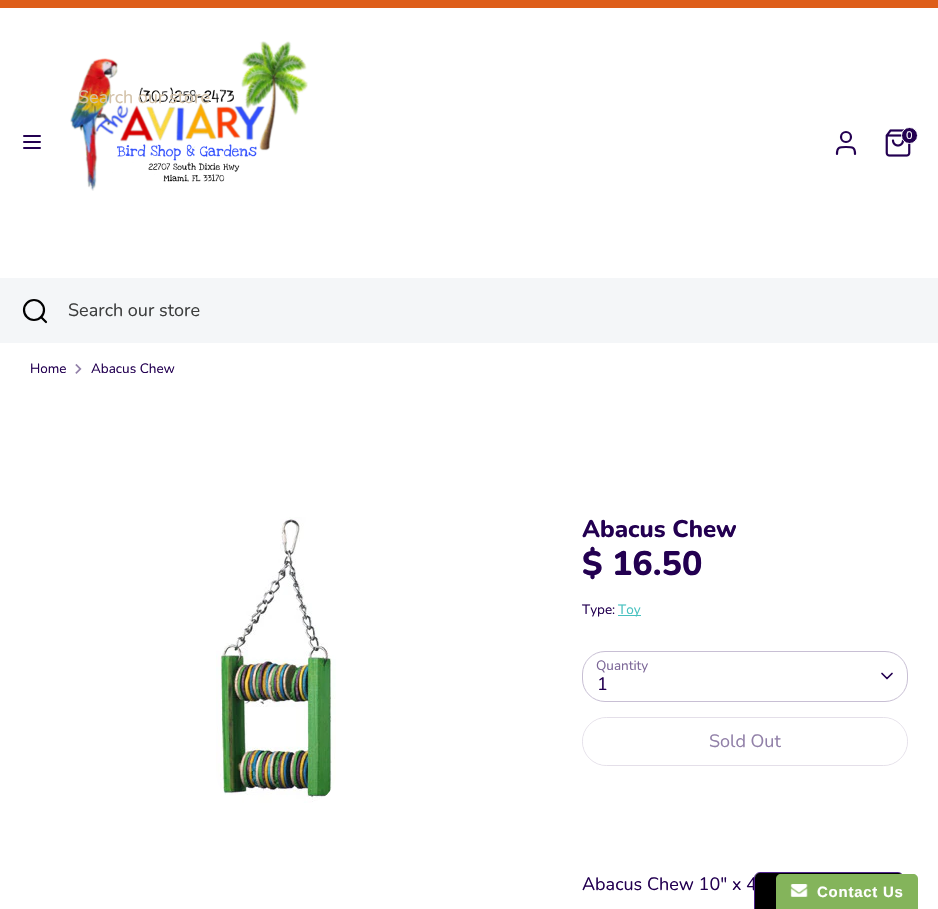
void draw(SkCanvas* canvas) {
	SkPaint fill;
	fill.setAntiAlias(true);
	auto makeFont = [&](const char* family, int weight, float size, bool italic = false) {
		SkFontStyle style(weight, SkFontStyle::kNormal_Width,
			italic ? SkFontStyle::kItalic_Slant : SkFontStyle::kUpright_Slant);
		SkFont result(fontMgr->matchFamilyStyle(family, style), size);
		result.setSubpixel(true);
		return result;
	};
	auto text = [&](const char* s, float x, float y, const SkFont& font) {
		canvas->drawString(s, x, y, font, fill);
	};
	auto spacedText = [&](const char* s, float x, float y, const SkFont& font, const SkPaint& ink, float letter, float word) {
		std::vector<SkGlyphID> glyphs(font.countText(s, strlen(s), SkTextEncoding::kUTF8));
		std::vector<float> xs(glyphs.size());
		font.textToGlyphs(s, strlen(s), SkTextEncoding::kUTF8, glyphs);
		font.getXPos(glyphs, xs, x);
		float extra = 0;
		for (size_t i = 0; i < glyphs.size(); i++) {
			xs[i] += extra;
			extra += letter + word * (glyphs[i] == font.unicharToGlyph(' '));
		}
		canvas->drawTextBlob(SkTextBlob::MakeFromPosHGlyphs(glyphs, xs, y, font), 0, 0, ink);
	};
	auto box = [&](float l, float t, float r, float b) {
		canvas->drawRect(SkRect::MakeLTRB(l, t, r, b), fill);
	};
	auto roundBox = [&](float l, float t, float r, float b, float radius) {
		canvas->drawRoundRect(SkRect::MakeLTRB(l, t, r, b), radius, radius, fill);
	};
	auto picture = [&](const char* path, float l, float t, float r, float b) {
		auto image = SkImages::DeferredFromEncodedData(SkData::MakeFromFileName(path));
		canvas->drawImageRect(image, SkRect::MakeLTRB(l, t, r, b), SkSamplingOptions());
	};
	canvas->clear(0xFFFFFFFF);
	fill.setColor(0xFFDE5E1A);
	box(0, 0, 938, 8);
	fill.setColor(0xFFF4F6F8);
	box(0, 278, 938, 343);
	fill.setStyle(SkPaint::kStroke_Style);
	fill.setStrokeWidth(2.2f);
	fill.setColor(0xFF000000);
	canvas->drawCircle(34, 310, 10, fill);
	fill.setStrokeCap(SkPaint::kRound_Cap);
	fill.setStrokeJoin(SkPaint::kRound_Join);
	canvas->drawPath(SkPathBuilder().moveTo(46, 322).lineTo(41, 317).detach(), fill);
	fill.setStrokeWidth(2);
	fill.setColor(0xFF230051);
	canvas->drawPath(SkPathBuilder().moveTo(24, 142).lineTo(40, 142).moveTo(24, 136).lineTo(40, 136).moveTo(24, 148).lineTo(40, 148).detach(), fill);
	picture("image0.png", 70, 41, 308, 191);
	fill.setStrokeWidth(2.2f);
	canvas->drawPath(SkPathBuilder().moveTo(855, 154).cubicTo(855, 147, 852.5f, 147, 846, 147).cubicTo(839.5f, 147, 837, 147, 837, 154).detach(), fill);
	fill.setStrokeCap(SkPaint::kButt_Cap);
	fill.setStrokeJoin(SkPaint::kMiter_Join);
	canvas->drawCircle(846, 137, 5, fill);
	picture("image1.png", 885, 129, 911, 157);
	fill.setStyle(SkPaint::kFill_Style);
	canvas->drawCircle(909.5f, 135.5f, 8, fill);
	fill.setStyle(SkPaint::kStroke_Style);
	fill.setStrokeWidth(1);
	fill.setColor(0xFFFFFFFF);
	canvas->drawCircle(909.5f, 135.5f, 8, fill);
	picture("image2.png", 75, 364, 82, 374);
	picture("image3.png", 216, 517, 336, 803);
	fill.setStyle(SkPaint::kFill_Style);
	fill.setColor(0xFF47C1BF);
	box(618, 615, 641, 616);
	fill.setStyle(SkPaint::kStroke_Style);
	fill.setColor(0xFFC8BFD4);
	canvas->drawRoundRect(SkRect::MakeLTRB(582.5f, 651.5f, 907.5f, 701.5f), 22.5f, 22.5f, fill);
	fill.setStrokeWidth(1.7f);
	fill.setStrokeCap(SkPaint::kRound_Cap);
	fill.setStrokeJoin(SkPaint::kRound_Join);
	fill.setColor(0xFF230051);
	canvas->drawPath(SkPathBuilder().moveTo(882, 673.5f).lineTo(887, 678.5f).lineTo(892, 673.5f).detach(), fill);
	fill.setStrokeWidth(1);
	fill.setStrokeCap(SkPaint::kButt_Cap);
	fill.setStrokeJoin(SkPaint::kMiter_Join);
	fill.setColor(0xFFE4DFE9);
	canvas->drawRoundRect(SkRect::MakeLTRB(582.5f, 717.5f, 907.5f, 765.5f), 24, 24, fill);
	fill.setStyle(SkPaint::kFill_Style);
	fill.setColor(0xFFFFFFFF);
	roundBox(583, 718, 907, 765, 23.5f);
	auto font1 = makeFont("Nunito", 400, 18);
	fill.setColor(0xFFD3C2A9);
	text("Search our store", 78, 103, font1);
	fill.setColor(0xFF3D3E3E);
	text("Search our store", 68, 316, font1);
	auto font2 = makeFont("Nunito", 400, 11);
	fill.setColor(0xFFFFFFFF);
	text("0", 906, 139, font2);
	auto font3 = makeFont("Nunito", 400, 13.5f);
	fill.setColor(0xFF230051);
	text("Home", 30, 373, font3);
	text("Abacus Chew", 91, 373, font3);
	auto font4 = makeFont("Nunito", 800, 24);
	text("Abacus Chew", 582, 537, font4);
	auto font5 = makeFont("Nunito", 800, 34);
	text("$ 16.50", 582, 575, font5);
	text("Type:", 582, 614, font3);
	fill.setColor(0xFF47C1BF);
	text("Toy", 618, 614, font3);
	fill.setColor(0xFF7B6697);
	text("Quantity", 596, 670, font3);
	fill.setColor(0xFF230051);
	text("1", 597, 690, font1);
	fill.setColor(0xFF9180A8);
	text("Sold Out", 709, 747, font1);
	fill.setColor(0xFF230051);
	text("Abacus Chew 10\" x 4", 582, 890, font1);
	fill.setStyle(SkPaint::kStroke_Style);
	fill.setColor(0xFF50248F);
	canvas->drawPath(SkPathBuilder().moveTo(760, 872.5f).lineTo(898, 872.5f).cubicTo(901, 872.5f, 903.5f, 875, 903.5f, 878).lineTo(903.5f, 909.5f).lineTo(754.5f, 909.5f).lineTo(754.5f, 878).cubicTo(754.5f, 875, 757, 872.5f, 760, 872.5f).close().detach(), fill);
	fill.setStyle(SkPaint::kFill_Style);
	fill.setColor(0xFF000000);
	canvas->drawPath(SkPathBuilder().moveTo(760, 873).lineTo(898, 873).cubicTo(901, 873, 903, 875, 903, 878).lineTo(903, 909).lineTo(755, 909).lineTo(755, 878).cubicTo(755, 875, 757, 873, 760, 873).close().detach(), fill);
	fill.setColor(0xFF84B45B);
	canvas->drawPath(SkPathBuilder().moveTo(781, 874).lineTo(913, 874).cubicTo(916, 874, 918, 876, 918, 879).lineTo(918, 909).lineTo(776, 909).lineTo(776, 879).cubicTo(776, 876, 778, 874, 781, 874).close().detach(), fill);
	picture("image4.png", 790, 884, 808, 897);
	auto font6 = makeFont("Liberation Sans", 700, 15);
	fill.setColor(0xFFFFFFFF);
	spacedText("Contact Us", 817, 897, font6, fill, 0.75f, 0);
}
